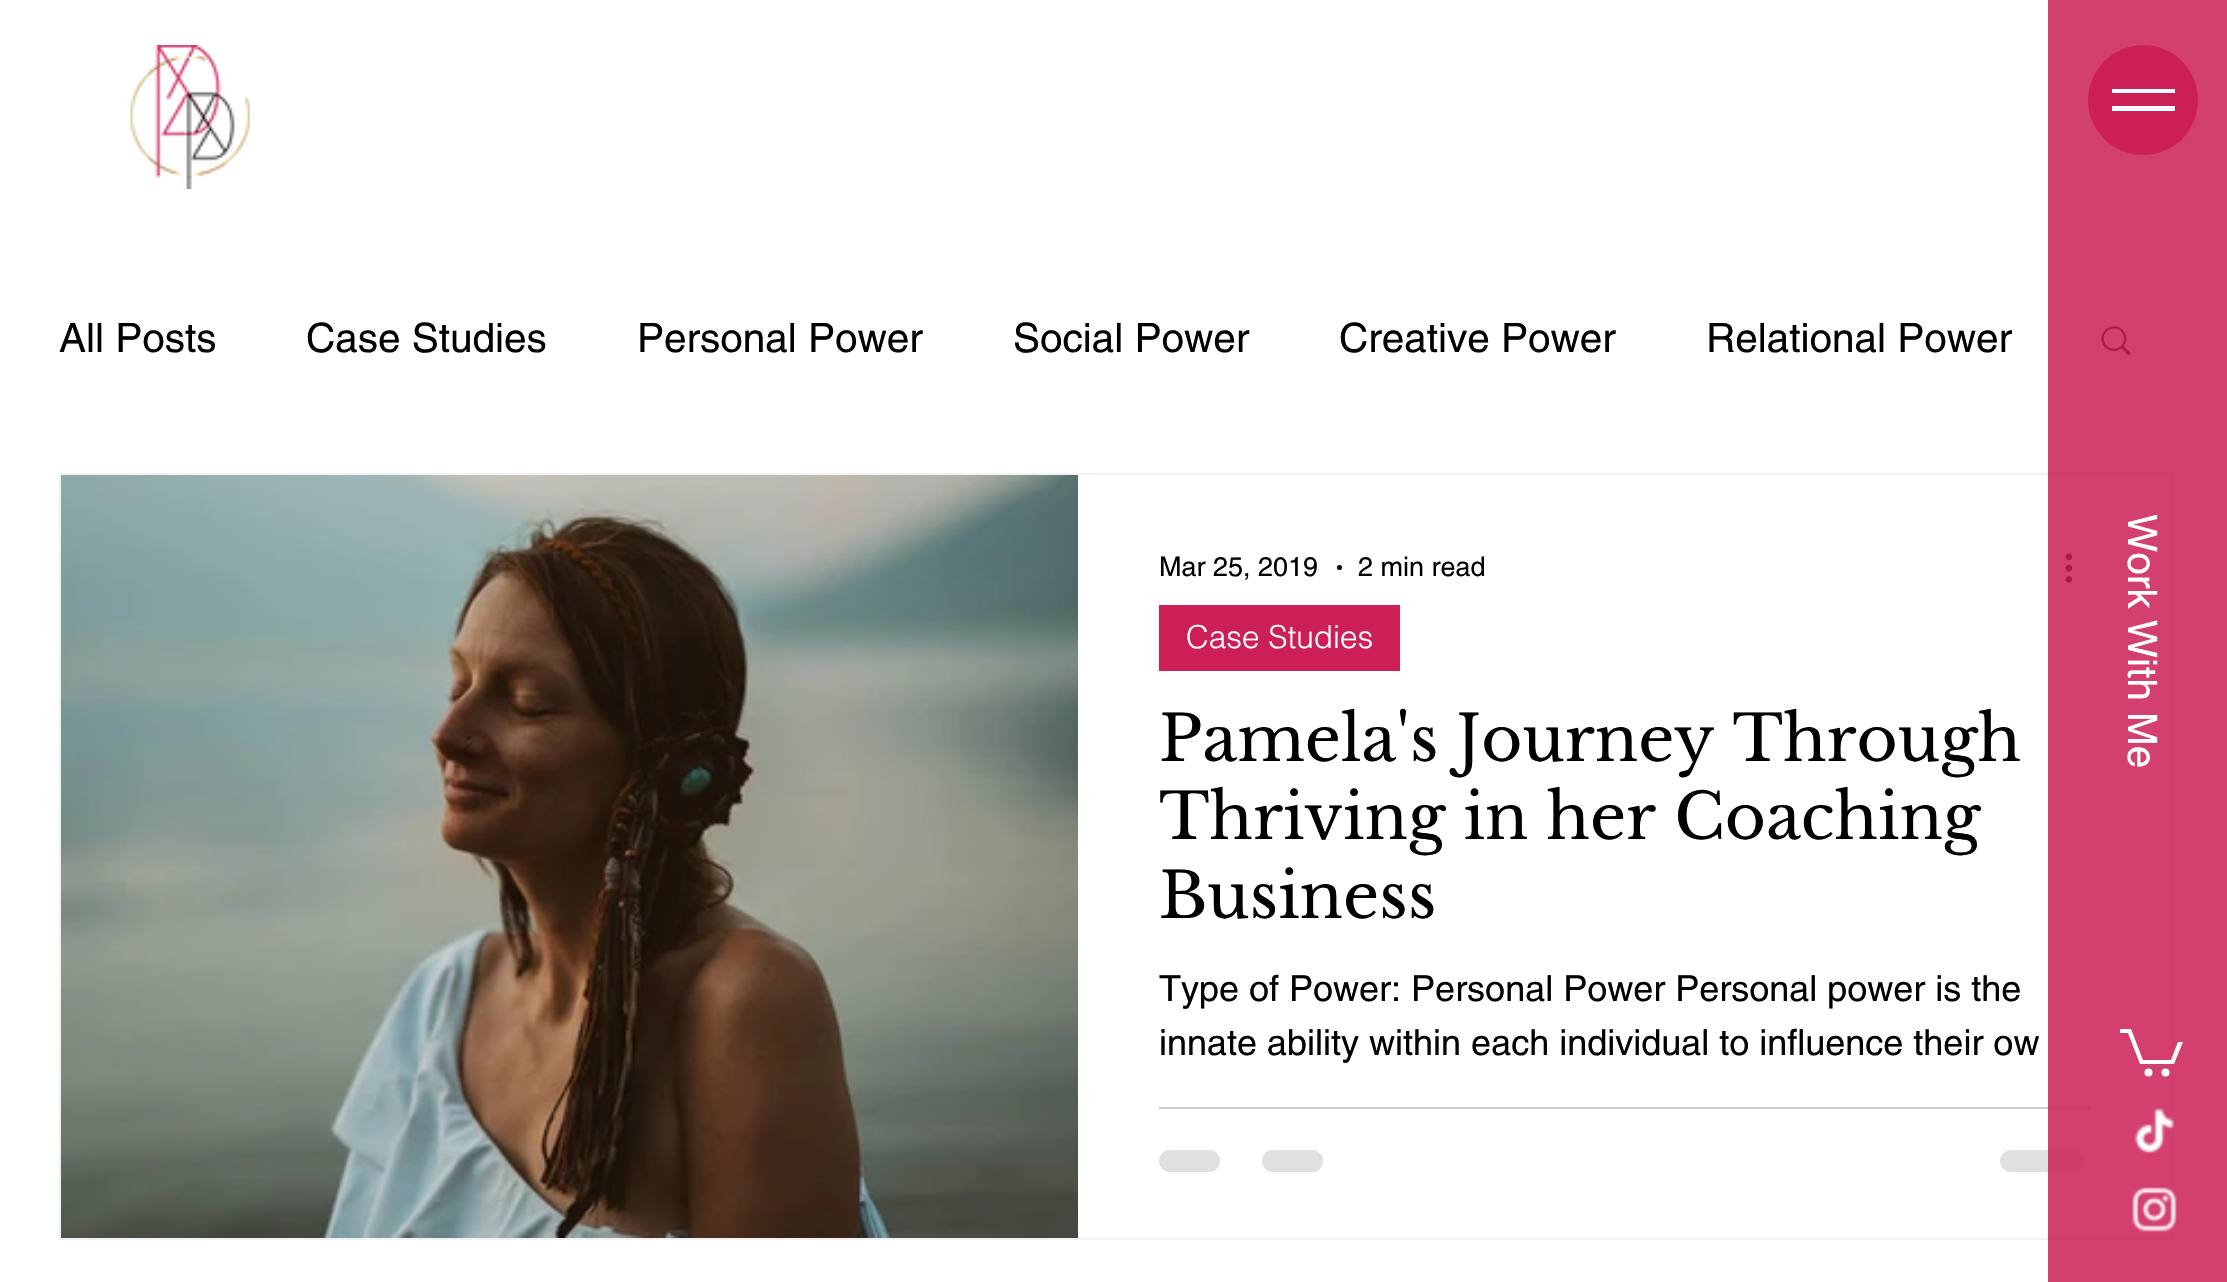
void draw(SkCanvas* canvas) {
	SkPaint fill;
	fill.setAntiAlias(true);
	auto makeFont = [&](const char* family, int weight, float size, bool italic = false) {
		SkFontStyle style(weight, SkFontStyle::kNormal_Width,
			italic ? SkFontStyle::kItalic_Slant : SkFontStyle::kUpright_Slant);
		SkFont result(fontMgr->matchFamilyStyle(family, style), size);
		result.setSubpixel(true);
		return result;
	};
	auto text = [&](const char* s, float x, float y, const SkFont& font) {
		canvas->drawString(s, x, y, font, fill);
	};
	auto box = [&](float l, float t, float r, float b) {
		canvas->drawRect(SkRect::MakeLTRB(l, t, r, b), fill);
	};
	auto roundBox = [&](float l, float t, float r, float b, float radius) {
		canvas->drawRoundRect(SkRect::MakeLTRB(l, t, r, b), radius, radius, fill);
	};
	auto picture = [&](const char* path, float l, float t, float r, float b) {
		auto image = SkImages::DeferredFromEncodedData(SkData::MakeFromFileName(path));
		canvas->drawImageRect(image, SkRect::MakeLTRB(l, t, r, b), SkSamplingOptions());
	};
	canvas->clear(0xFFFFFFFF);
	picture("image0.png", 130, 45, 250, 189);
	picture("image1.png", 2101, 326, 2131, 356);
	fill.setStyle(SkPaint::kStroke_Style);
	fill.setStrokeWidth(2);
	fill.setColor(0xFFF2F2F2);
	canvas->drawRect(SkRect::MakeLTRB(60, 474, 2173, 1239), fill);
	picture("image3.png", 2065, 553, 2073, 583);
	fill.setStyle(SkPaint::kFill_Style);
	fill.setColor(0xFFCCCCCC);
	box(1159, 1107, 2090, 1109);
	fill.setColor(0xFFE0E0E0);
	roundBox(2000, 1150, 2084, 1172, 11);
	fill.setColor(0xD9CC1F55);
	box(2048, 0, 2227, 1282);
	fill.setColor(0xFFCC1F55);
	canvas->drawPath(SkPathBuilder().moveTo(2198, 100).cubicTo(2198, 131, 2174, 155, 2143, 155).cubicTo(2113, 155, 2088, 131, 2088, 100).cubicTo(2088, 70, 2113, 45, 2143, 45).cubicTo(2174, 45, 2198, 70, 2198, 100).close().detach(), fill);
	fill.setColor(0xFFFFFFFF);
	box(2112, 89, 2175, 93);
	box(2112, 106, 2175, 111);
	picture("image2.png", 61, 475, 1078, 1238);
	fill.setColor(0xFF000000);
	canvas->drawCircle(1339.5f, 567.5f, 2.5f, fill);
	fill.setColor(0xFFCC1F55);
	box(1159, 605, 1400, 671);
	fill.setColor(0xFFE0E0E0);
	roundBox(1159, 1150, 1220, 1172, 11);
	roundBox(1262, 1150, 1323, 1172, 11);
	fill.setColor(0xFFFFFFFF);
	canvas->drawPath(SkPathBuilder().moveTo(2183, 1042).lineTo(2174, 1064).lineTo(2140, 1064).lineTo(2128, 1033).lineTo(2120, 1033).lineTo(2120, 1029).lineTo(2131, 1029).lineTo(2143, 1060).lineTo(2171, 1060).lineTo(2178, 1042).detach(), fill);
	canvas->drawCircle(2165.5f, 1072.5f, 4, fill);
	canvas->drawCircle(2148.5f, 1072.5f, 4, fill);
	picture("image4.png", 2134, 1108, 2175, 1154);
	picture("image5.png", 2132, 1187, 2177, 1232);
	auto font1 = makeFont("helvetica", 400, 40.5f);
	fill.setColor(0xFF000000);
	text("All Posts", 59, 352, font1);
	text("Case Studies", 306, 352, font1);
	text("Personal Power", 637, 352, font1);
	text("Social Power", 1013, 352, font1);
	text("Creative Power", 1339, 352, font1);
	text("Relational Power", 1706, 352, font1);
	auto font2 = makeFont("helvetica", 400, 27);
	text("Mar 25, 2019", 1159, 576, font2);
	text("2 min read", 1358, 576, font2);
	auto font3 = makeFont("helvetica", 300, 31.5f);
	fill.setColor(0xFFFFFFFF);
	text("Case Studies", 1186, 648, font3);
	auto font4 = makeFont("Libre Baskerville", 400, 63);
	fill.setColor(0xFF000000);
	text("Pamela's Journey Through", 1159, 761, font4);
	text("Thriving in her Coaching", 1159, 839, font4);
	text("Business", 1159, 918, font4);
	auto font5 = makeFont("helvetica", 400, 36);
	text("Type of Power: Personal Power Personal power is the", 1159, 1001, font5);
	text("innate ability within each individual to influence their ow", 1159, 1055, font5);
	fill.setColor(0xFFFFFFFF);
	canvas->save();
	canvas->rotate(90, 2128, 514);
	text("Work With Me", 2128, 514, font1);
	canvas->restore();
}
